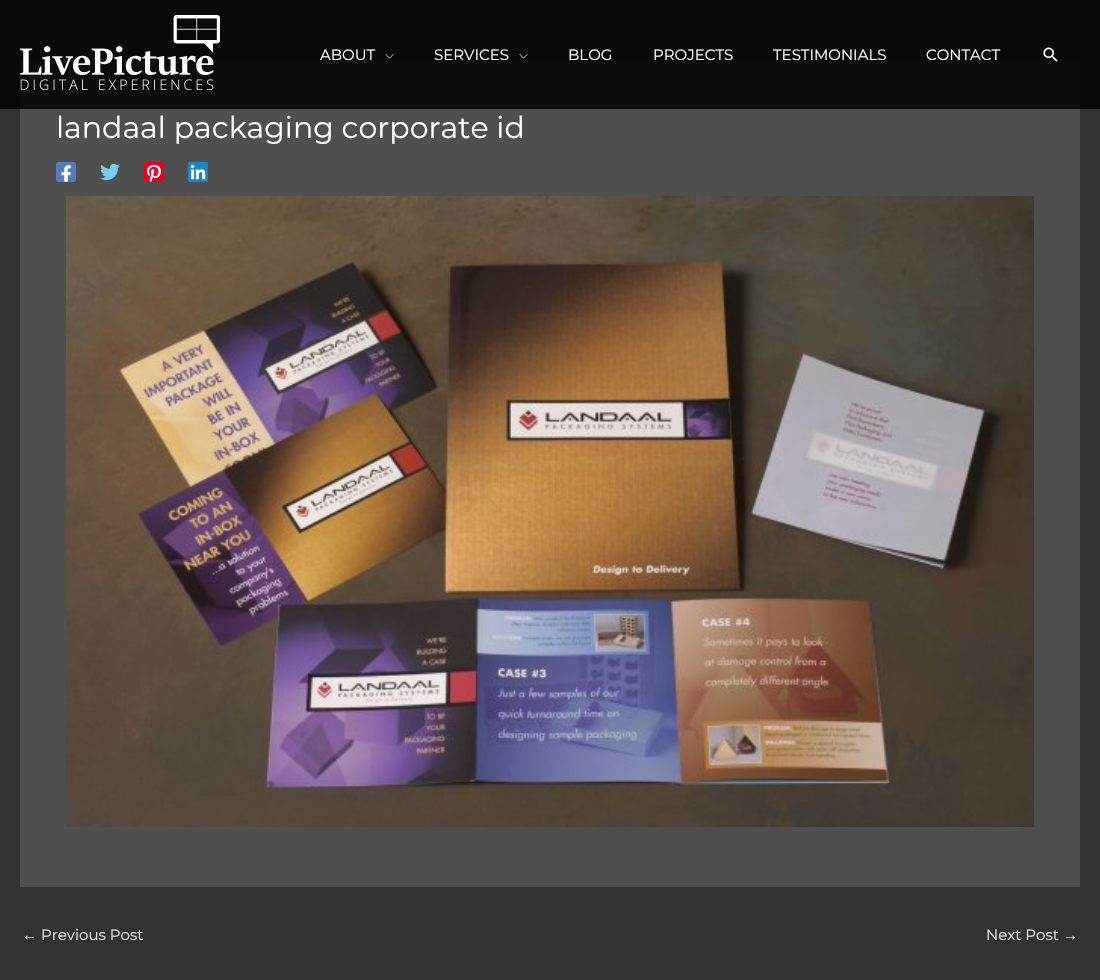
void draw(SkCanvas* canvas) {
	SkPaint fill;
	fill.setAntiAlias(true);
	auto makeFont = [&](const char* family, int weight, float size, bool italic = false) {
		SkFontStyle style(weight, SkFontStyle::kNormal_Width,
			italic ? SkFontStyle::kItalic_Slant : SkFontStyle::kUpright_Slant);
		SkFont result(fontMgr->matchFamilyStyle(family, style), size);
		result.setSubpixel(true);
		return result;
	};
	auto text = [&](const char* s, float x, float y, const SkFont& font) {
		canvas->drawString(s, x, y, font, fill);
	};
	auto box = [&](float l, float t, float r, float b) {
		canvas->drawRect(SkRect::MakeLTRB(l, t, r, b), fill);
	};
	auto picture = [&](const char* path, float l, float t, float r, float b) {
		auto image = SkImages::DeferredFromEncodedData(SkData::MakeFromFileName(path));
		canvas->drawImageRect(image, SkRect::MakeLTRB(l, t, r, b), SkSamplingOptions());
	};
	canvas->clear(0xFF323232);
	fill.setColor(0xFF090909);
	box(0, 0, 1100, 109);
	fill.setColor(0xFF0D0D0D);
	box(20, 60, 1080, 109);
	picture("image0.png", 20, 15, 220, 90);
	picture("image1.png", 385, 54, 394, 59);
	picture("image1.png", 519, 54, 528, 59);
	picture("image2.png", 1043, 47, 1058, 62);
	fill.setColor(0xFF4F4F4F);
	box(20, 109, 1080, 887);
	picture("image3.png", 56, 162, 76, 182);
	picture("image4.png", 100, 163, 120, 181);
	picture("image5.png", 144, 162, 164, 182);
	picture("image6.png", 188, 162, 208, 182);
	picture("image7.png", 66, 196, 1034, 827);
	auto font1 = makeFont("Montserrat", 400, 15);
	fill.setColor(0xFFFFFFFF);
	text("ABOUT", 320, 60, font1);
	text("SERVICES", 434, 60, font1);
	text("BLOG", 568, 60, font1);
	text("PROJECTS", 653, 60, font1);
	text("TESTIMONIALS", 773, 60, font1);
	text("CONTACT", 926, 60, font1);
	auto font2 = makeFont("Montserrat", 400, 30);
	text("landaal packaging corporate id", 56, 138, font2);
	auto font3 = makeFont("Liberation Sans", 400, 15);
	fill.setColor(0xFFE2E2E2);
	text("←", 22, 940, font3);
	text("Previous Post", 41, 940, font1);
	text("Next Post", 986, 940, font1);
	text("→", 1063, 940, font3);
}
